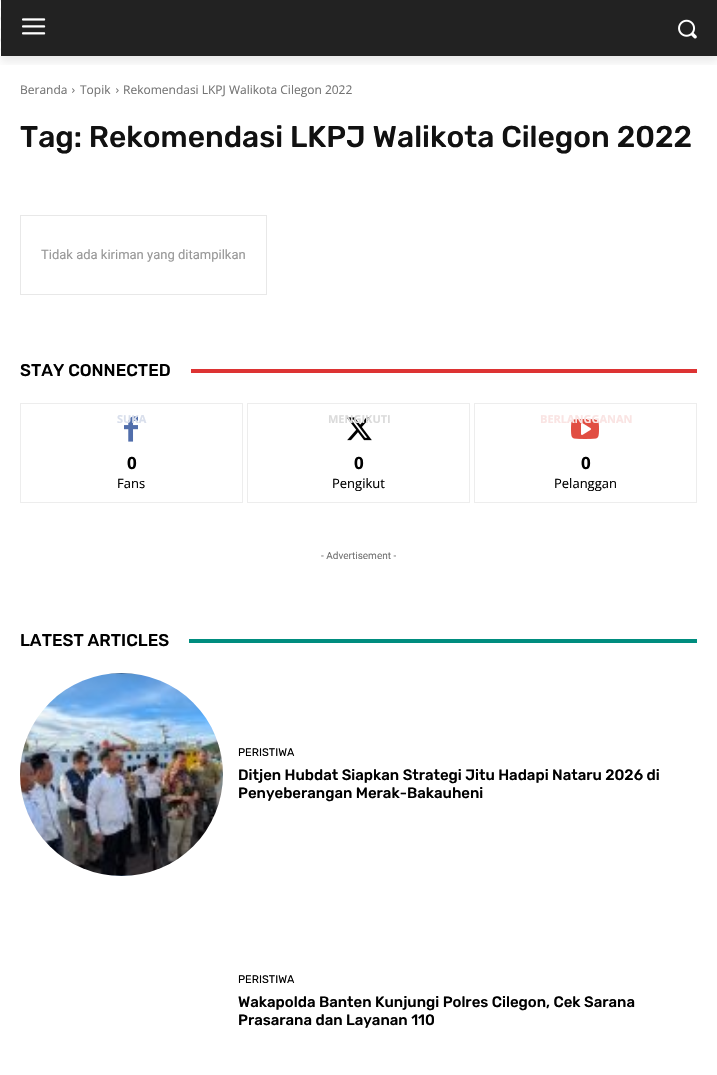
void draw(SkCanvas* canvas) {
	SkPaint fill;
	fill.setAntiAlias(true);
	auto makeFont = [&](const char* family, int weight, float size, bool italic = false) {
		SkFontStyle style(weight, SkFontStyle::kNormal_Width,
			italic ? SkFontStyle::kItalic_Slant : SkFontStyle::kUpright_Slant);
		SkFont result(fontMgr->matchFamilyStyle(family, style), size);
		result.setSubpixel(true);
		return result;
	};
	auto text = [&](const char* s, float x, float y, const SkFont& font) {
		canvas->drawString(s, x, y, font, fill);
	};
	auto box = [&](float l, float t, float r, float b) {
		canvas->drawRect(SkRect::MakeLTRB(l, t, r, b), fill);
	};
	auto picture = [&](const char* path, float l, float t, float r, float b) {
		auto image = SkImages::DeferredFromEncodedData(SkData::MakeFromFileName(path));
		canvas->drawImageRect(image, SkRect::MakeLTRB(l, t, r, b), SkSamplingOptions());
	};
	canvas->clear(0xFFFFFFFF);
	picture("image0.png", 0, 0, 1, 56);
	fill.setColor(0xFF222222);
	box(1, 0, 717, 56);
	picture("image1.png", 22, 18, 46, 35);
	picture("image2.png", 678, 19, 697, 39);
	canvas->save();
	canvas->clipRect(SkRect::MakeLTRB(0, 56, 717, 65));
	fill.setColor(0x14000000);
	fill.setMaskFilter(SkMaskFilter::MakeBlur(kNormal_SkBlurStyle, 4));
	canvas->drawRect(SkRect::MakeLTRB(1, 6, 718, 62), fill);
	fill.setMaskFilter(nullptr);
	canvas->restore();
	picture("image3.png", 72, 88, 75, 93);
	picture("image3.png", 116, 88, 119, 93);
	fill.setStyle(SkPaint::kStroke_Style);
	fill.setStrokeWidth(1);
	fill.setColor(0xFFE8E8E8);
	canvas->drawRect(SkRect::MakeLTRB(20.5f, 215.5f, 266.5f, 294.5f), fill);
	fill.setStyle(SkPaint::kFill_Style);
	fill.setColor(0xFFDD3333);
	box(191, 369, 697, 373);
	fill.setStyle(SkPaint::kStroke_Style);
	fill.setColor(0xFFEDEDED);
	canvas->drawRect(SkRect::MakeLTRB(20.5f, 403.5f, 242.5f, 502.5f), fill);
	picture("image4.png", 124, 416, 138, 442);
	canvas->drawRect(SkRect::MakeLTRB(247.5f, 403.5f, 469.5f, 502.5f), fill);
	picture("image5.png", 346, 417, 372, 441);
	canvas->drawRect(SkRect::MakeLTRB(474.5f, 403.5f, 696.5f, 502.5f), fill);
	picture("image6.png", 571, 419, 599, 439);
	fill.setStyle(SkPaint::kFill_Style);
	fill.setColor(0xFF008D7F);
	box(189, 639, 697, 643);
	picture("image7.png", 20, 673, 223, 876);
	auto font1 = makeFont("Open Sans", 400, 12);
	fill.setColor(0xFF747474);
	text("Beranda", 20, 94, font1);
	text("Topik", 80, 94, font1);
	text("Rekomendasi LKPJ Walikota Cilegon 2022", 123, 94, font1);
	auto font2 = makeFont("Rubik", 500, 30);
	fill.setColor(0xFF111111);
	text("Tag: Rekomendasi LKPJ Walikota Cilegon 2022", 20, 147, font2);
	auto font3 = makeFont("Roboto", 400, 13);
	fill.setColor(0xFF979797);
	text("Tidak ada kiriman yang ditampilkan", 41, 259, font3);
	auto font4 = makeFont("Rubik", 500, 17);
	fill.setColor(0xFF000000);
	text("STAY CONNECTED", 20, 376, font4);
	auto font5 = makeFont("Open Sans", 700, 11);
	fill.setColor(0xFFD9DFEC);
	text("SUKA", 117, 423, font5);
	auto font6 = makeFont("Open Sans", 700, 17);
	fill.setColor(0xFF000000);
	text("0", 127, 469, font6);
	auto font7 = makeFont("Open Sans", 400, 13);
	text("Fans", 117, 488, font7);
	fill.setColor(0xFFDBDBDB);
	text("MENGIKUTI", 328, 423, font5);
	fill.setColor(0xFF000000);
	text("0", 354, 469, font6);
	text("Pengikut", 332, 488, font7);
	fill.setColor(0xFFFAE4E3);
	text("BERLANGGANAN", 540, 423, font5);
	fill.setColor(0xFF000000);
	text("0", 581, 469, font6);
	text("Pelanggan", 554, 488, font7);
	auto font8 = makeFont("Roboto", 400, 10);
	fill.setColor(0xFF747474);
	text("- Advertisement -", 321, 559, font8);
	fill.setColor(0xFF000000);
	text("LATEST ARTICLES", 20, 646, font4);
	auto font9 = makeFont("Rubik", 400, 11);
	text("PERISTIWA", 238, 756, font9);
	auto font10 = makeFont("Rubik", 500, 15);
	text("Ditjen Hubdat Siapkan Strategi Jitu Hadapi Nataru 2026 di", 238, 780, font10);
	text("Penyeberangan Merak-Bakauheni", 238, 798, font10);
	text("PERISTIWA", 238, 983, font9);
	text("Wakapolda Banten Kunjungi Polres Cilegon, Cek Sarana", 238, 1007, font10);
	text("Prasarana dan Layanan 110", 238, 1025, font10);
}
